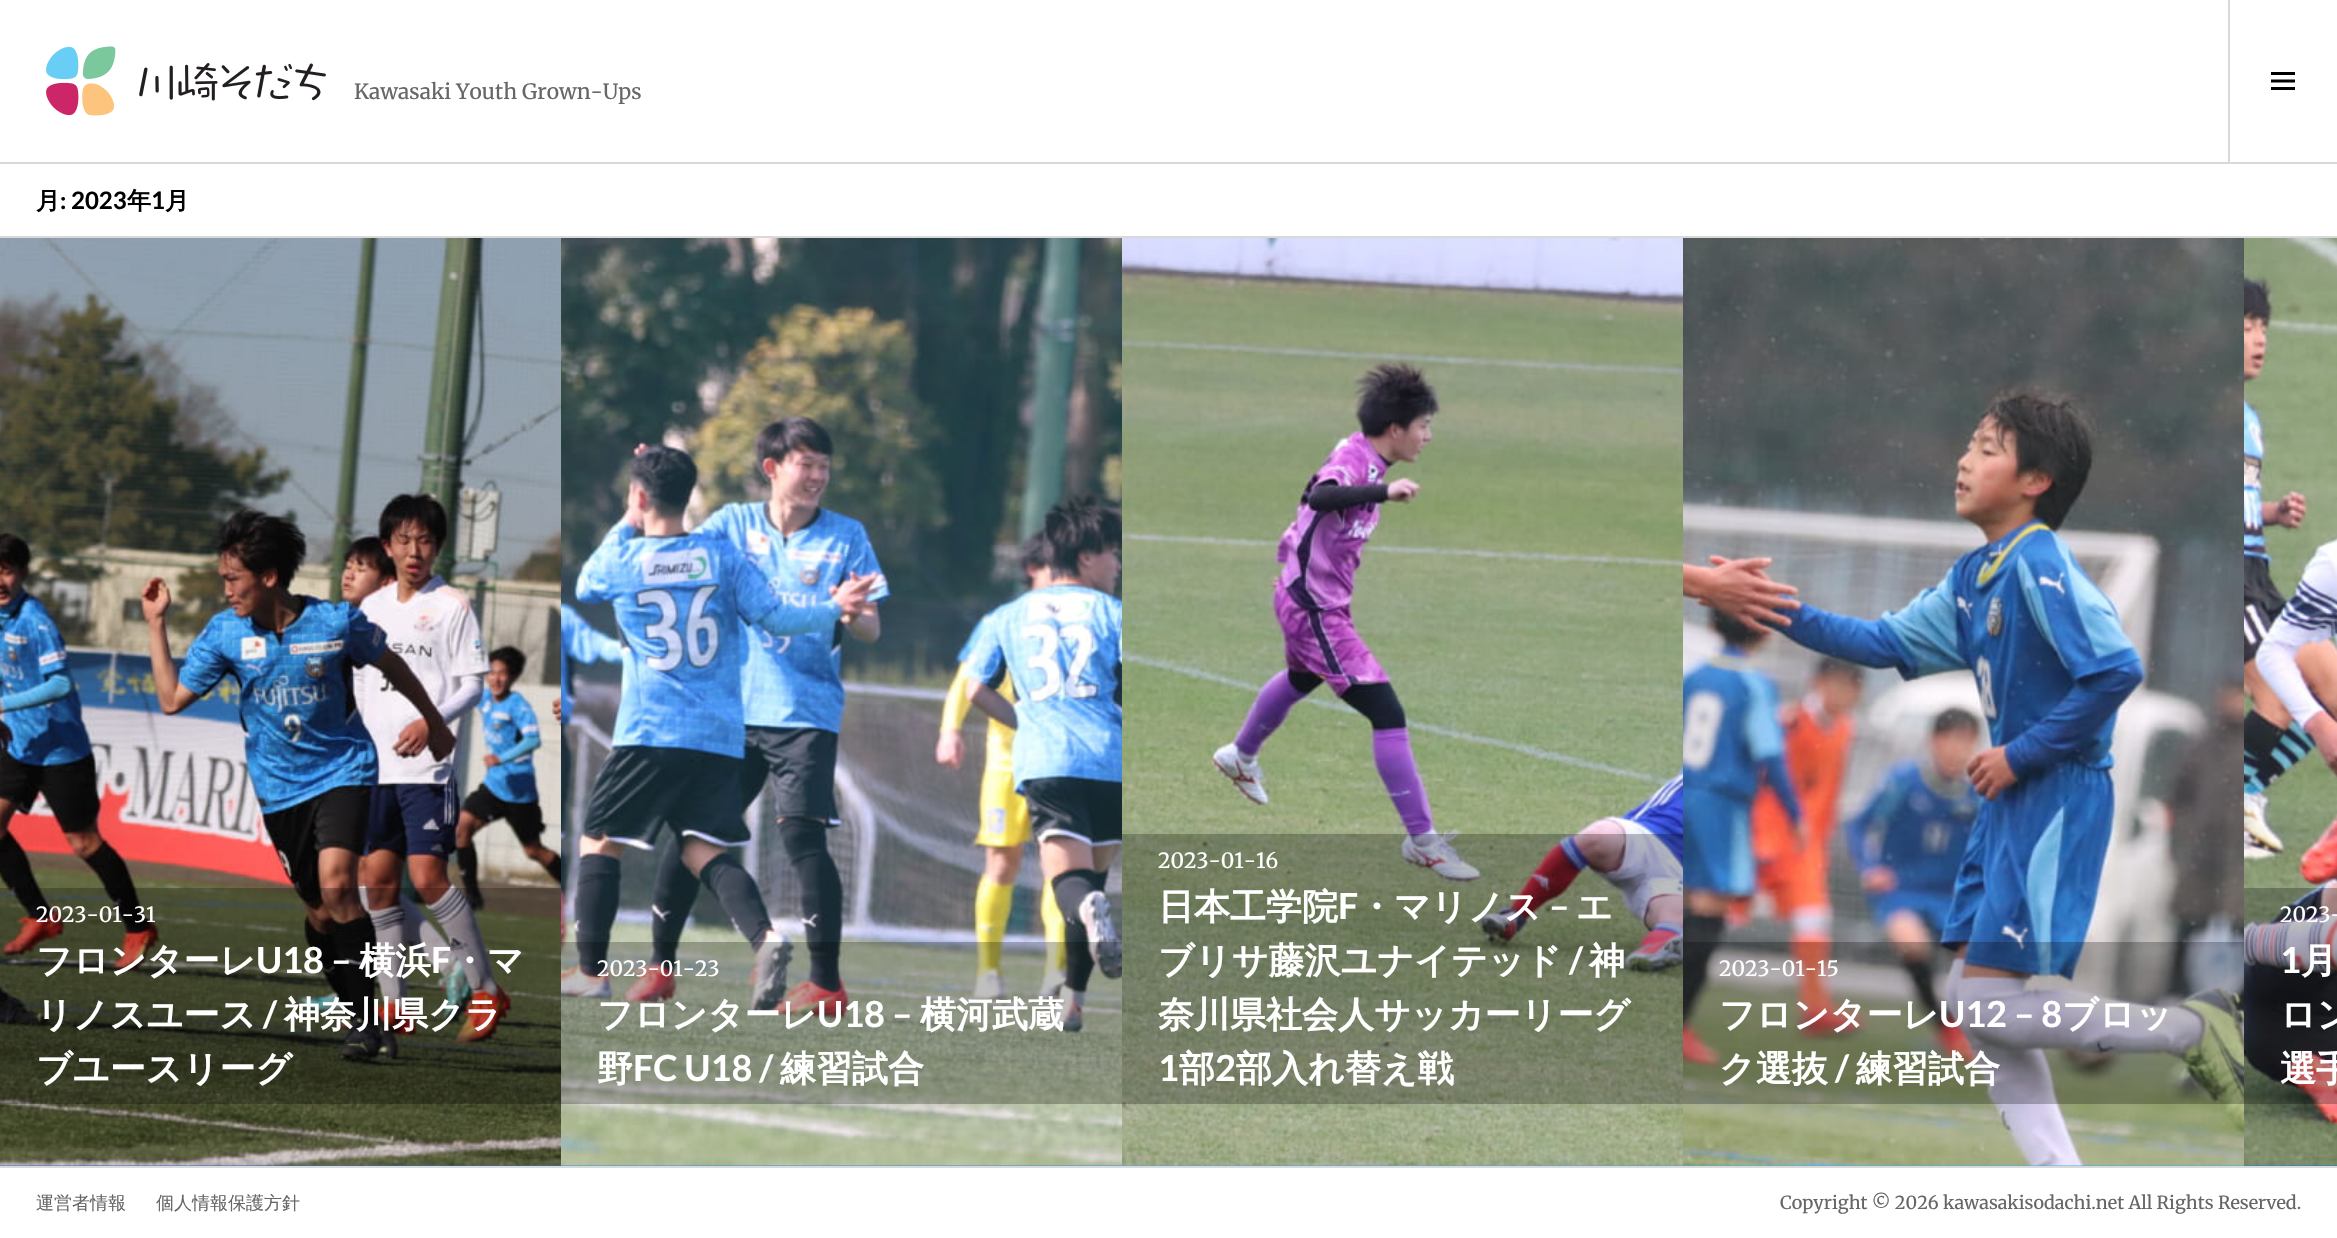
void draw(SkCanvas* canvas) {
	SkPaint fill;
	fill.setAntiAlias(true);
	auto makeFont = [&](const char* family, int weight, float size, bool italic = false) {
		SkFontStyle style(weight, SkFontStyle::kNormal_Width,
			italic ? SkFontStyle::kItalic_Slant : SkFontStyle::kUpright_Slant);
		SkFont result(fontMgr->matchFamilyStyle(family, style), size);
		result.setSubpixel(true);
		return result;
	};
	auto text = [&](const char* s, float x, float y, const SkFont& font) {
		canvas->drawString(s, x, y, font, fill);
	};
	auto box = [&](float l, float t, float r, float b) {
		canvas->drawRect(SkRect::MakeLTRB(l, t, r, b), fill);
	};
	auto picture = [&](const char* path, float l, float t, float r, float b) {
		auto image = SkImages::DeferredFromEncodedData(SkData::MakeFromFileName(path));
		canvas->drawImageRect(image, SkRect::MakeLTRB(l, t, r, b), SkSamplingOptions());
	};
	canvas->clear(0xFFFFFFFF);
	fill.setColor(0xFFD9D9D9);
	box(0, 162, 2337, 164);
	picture("image0.png", 46, 46, 326, 116);
	box(2228, 0, 2230, 162);
	picture("image1.png", 2271, 72, 2295, 90);
	box(0, 236, 2337, 238);
	fill.setColor(0xFF1C71E9);
	box(0, 1165, 561, 1166);
	picture("image2.png", 0, 238, 561, 1166);
	fill.setColor(0x40000000);
	box(0, 888, 561, 1104);
	fill.setColor(0xFF2A94FF);
	box(561, 1165, 1122, 1166);
	picture("image3.png", 561, 238, 1122, 1166);
	fill.setColor(0x40000000);
	box(561, 942, 1122, 1104);
	fill.setColor(0xFF3BA3FC);
	box(1122, 1165, 1683, 1166);
	picture("image4.png", 1122, 238, 1683, 1166);
	fill.setColor(0x40000000);
	box(1122, 834, 1683, 1104);
	fill.setColor(0xFF21B7FE);
	box(1683, 1165, 2244, 1166);
	picture("image5.png", 1683, 238, 2244, 1166);
	fill.setColor(0x40000000);
	box(1683, 942, 2244, 1104);
	fill.setColor(0xFF0088FF);
	box(2244, 1165, 2337, 1166);
	picture("image6.png", 2244, 238, 2337, 1166);
	fill.setColor(0x40000000);
	box(2244, 888, 2337, 1104);
	fill.setColor(0xFFD9D9D9);
	box(0, 1166, 2337, 1168);
	auto font1 = makeFont("Merriweather", 400, 21);
	fill.setColor(0xFF666666);
	text("Kawasaki Youth Grown-Ups", 354, 99, font1);
	auto font2 = makeFont("WenQuanYi Zen Hei", 700, 24);
	fill.setColor(0xFF000000);
	text("月", 36, 209, font2);
	auto font3 = makeFont("Lato", 700, 24);
	text(": 2023", 60, 209, font3);
	text("年", 127, 209, font2);
	text("1", 151, 209, font3);
	text("月", 165, 209, font2);
	fill.setColor(0xFFFFFFFF);
	text("2023-01-31", 36, 922, font1);
	auto font4 = makeFont("WenQuanYi Zen Hei", 700, 36);
	text("フロンターレ", 36, 973, font4);
	auto font5 = makeFont("Lato", 700, 36);
	text("U18 –", 256, 973, font5);
	text("横浜", 359, 973, font4);
	text("F", 431, 973, font5);
	text("・マ", 451, 973, font4);
	text("リノスユース", 36, 1027, font4);
	text("/", 263, 1027, font5);
	text("神奈川県クラ", 284, 1027, font4);
	text("ブユースリーグ", 36, 1081, font4);
	text("2023-01-23", 597, 976, font1);
	text("フロンターレ", 597, 1027, font4);
	text("U18 –", 817, 1027, font5);
	text("横河武蔵", 920, 1027, font4);
	text("野", 597, 1081, font4);
	text("FC U18 /", 633, 1081, font5);
	text("練習試合", 780, 1081, font4);
	text("2023-01-16", 1158, 868, font1);
	text("日本工学院", 1158, 919, font4);
	text("F", 1338, 919, font5);
	text("・マリノス", 1358, 919, font4);
	text("–", 1549, 919, font5);
	text("エ", 1576, 919, font4);
	text("ブリサ藤沢ユナイテッド", 1158, 973, font4);
	text("/", 1569, 973, font5);
	text("神", 1589, 973, font4);
	text("奈川県社会人サッカーリーグ", 1158, 1027, font4);
	text("1", 1158, 1081, font5);
	text("部", 1179, 1081, font4);
	text("2", 1215, 1081, font5);
	text("部入れ替え戦", 1236, 1081, font4);
	text("2023-01-15", 1719, 976, font1);
	text("フロンターレ", 1719, 1027, font4);
	text("U12 – 8", 1939, 1027, font5);
	text("ブロッ", 2062, 1027, font4);
	text("ク選抜", 1719, 1081, font4);
	text("/", 1835, 1081, font5);
	text("練習試合", 1856, 1081, font4);
	text("2023-", 2280, 922, font1);
	text("1", 2280, 973, font5);
	text("月", 2301, 973, font4);
	text("ロン", 2280, 1027, font4);
	text("選手", 2280, 1081, font4);
	auto font6 = makeFont("WenQuanYi Zen Hei", 500, 18);
	fill.setColor(0xFF666666);
	text("運営者情報", 36, 1209, font6);
	text("個人情報保護方針", 156, 1209, font6);
	auto font7 = makeFont("Merriweather", 400, 18);
	text("Copyright © 2026 kawasakisodachi.net All Rights Reserved.", 1780, 1209, font7);
}
